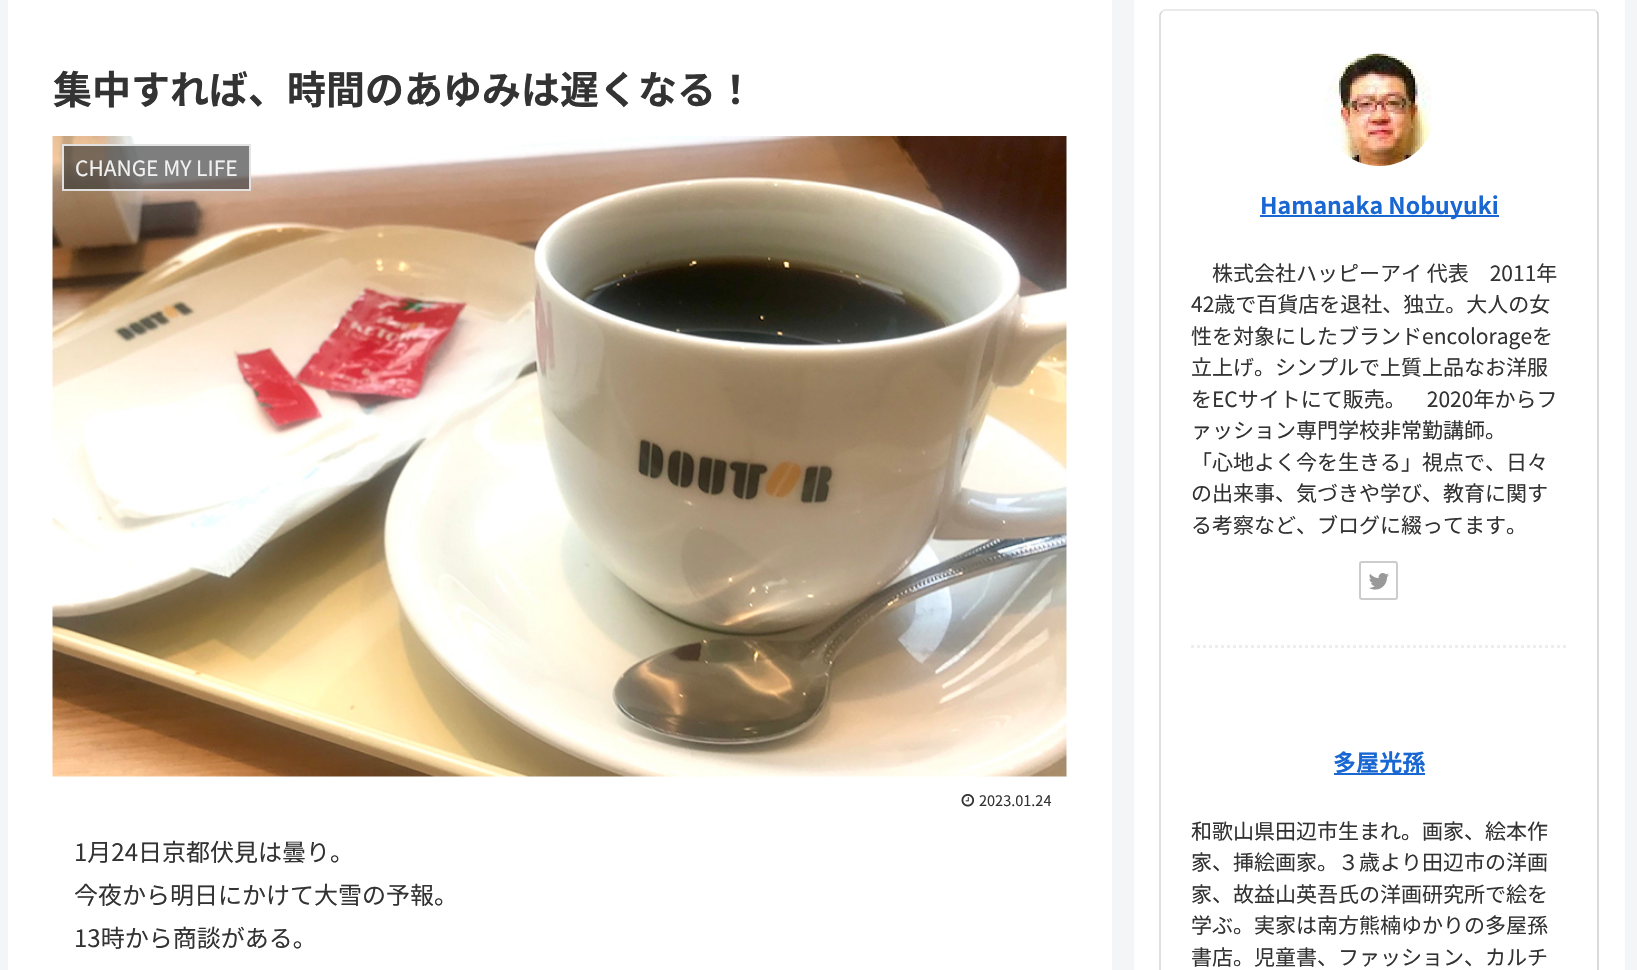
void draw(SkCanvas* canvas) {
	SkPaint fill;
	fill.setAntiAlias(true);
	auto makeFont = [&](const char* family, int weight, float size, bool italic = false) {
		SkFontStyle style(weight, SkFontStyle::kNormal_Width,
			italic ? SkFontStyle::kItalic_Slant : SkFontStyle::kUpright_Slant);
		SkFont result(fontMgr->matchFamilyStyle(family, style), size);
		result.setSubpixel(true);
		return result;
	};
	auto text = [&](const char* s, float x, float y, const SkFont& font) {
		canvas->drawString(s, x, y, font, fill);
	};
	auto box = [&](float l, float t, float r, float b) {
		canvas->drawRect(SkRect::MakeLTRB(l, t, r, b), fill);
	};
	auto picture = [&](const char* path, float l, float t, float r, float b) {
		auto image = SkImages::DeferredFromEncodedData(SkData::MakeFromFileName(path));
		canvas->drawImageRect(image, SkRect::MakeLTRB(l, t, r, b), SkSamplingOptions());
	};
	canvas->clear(0xFFF4F5F7);
	fill.setColor(0xFFFFFFFF);
	box(8, 0, 1112, 970);
	picture("image0.png", 52, 136, 1067, 777);
	fill.setColor(0xA1333333);
	box(62, 144, 251, 191);
	fill.setStyle(SkPaint::kStroke_Style);
	fill.setStrokeWidth(2);
	fill.setColor(0xE6EEEEEE);
	canvas->drawRect(SkRect::MakeLTRB(63, 145, 250, 190), fill);
	picture("image1.png", 961, 794, 975, 807);
	fill.setStyle(SkPaint::kFill_Style);
	fill.setColor(0xFFFFFFFF);
	box(1134, 0, 1625, 970);
	fill.setStyle(SkPaint::kStroke_Style);
	fill.setStrokeWidth(1.5f);
	fill.setColor(0xFFE3E3E3);
	canvas->drawPath(SkPathBuilder().moveTo(1162, 11.5f).cubicTo(1163, 10.5f, 1164, 10, 1165.5f, 10).lineTo(1593, 10).cubicTo(1594.5f, 10, 1595.5f, 10.5f, 1596.5f, 11.5f).detach(), fill);
	fill.setColor(0xFFCECECE);
	canvas->drawPath(SkPathBuilder().moveTo(1596.5f, 11.5f).cubicTo(1597.5f, 12.5f, 1598, 13.5f, 1598, 15).lineTo(1598, 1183.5f).cubicTo(1598, 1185, 1597.5f, 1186, 1596.5f, 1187).detach(), fill);
	fill.setColor(0xFFD6D6D6);
	canvas->drawPath(SkPathBuilder().moveTo(1162, 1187).cubicTo(1161, 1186, 1160, 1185, 1160, 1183.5f).lineTo(1160, 15).cubicTo(1160, 13.5f, 1161, 12.5f, 1162, 11.5f).detach(), fill);
	picture("image2.png", 1323, 53, 1433, 166);
	fill.setStyle(SkPaint::kFill_Style);
	fill.setColor(0xFF1967D2);
	box(1260, 215, 1499, 217);
	fill.setStyle(SkPaint::kStroke_Style);
	fill.setStrokeWidth(2);
	fill.setColor(0xFFCCCCCC);
	canvas->drawRoundRect(SkRect::MakeLTRB(1360, 562, 1397, 599), 2, 2, fill);
	picture("image3.png", 1369, 573, 1389, 590);
	fill.setStrokeWidth(3);
	fill.setColor(0xFFEEEEEE);
	fill.setPathEffect(SkDashPathEffect::Make({{3, 3}}, 0));
	canvas->drawPath(SkPathBuilder().moveTo(1191, 646.5f).lineTo(1567.5f, 646.5f).detach(), fill);
	fill.setPathEffect(nullptr);
	fill.setStyle(SkPaint::kFill_Style);
	fill.setColor(0xFF1967D2);
	box(1334, 773, 1425, 775);
	auto font1 = makeFont("Noto Sans JP", 700, 39);
	fill.setColor(0xFF333333);
	text("集中すれば、時間のあゆみは遅くなる！", 53, 104, font1);
	auto font2 = makeFont("Noto Sans JP", 400, 21);
	fill.setColor(0xFFF1F1F1);
	text("CHANGE MY LIFE", 75, 176, font2);
	auto font3 = makeFont("Noto Sans JP", 400, 14.5f);
	fill.setColor(0xFF333333);
	text("2023.01.24", 979, 806, font3);
	auto font4 = makeFont("Noto Sans JP", 400, 24);
	text("1月24日京都伏見は曇り。", 74, 861, font4);
	text("今夜から明日にかけて大雪の予報。", 74, 904, font4);
	text("13時から商談がある。", 74, 947, font4);
	auto font5 = makeFont("Noto Sans JP", 700, 23.1f);
	fill.setColor(0xFF1967D2);
	text("Hamanaka Nobuyuki", 1260, 214, font5);
	fill.setColor(0xFF333333);
	text("株式会社ハッピーアイ 代表　2011年", 1212, 281, font2);
	text("42歳で百貨店を退社、独立。大人の女", 1191, 312, font2);
	text("性を対象にしたブランドencolorageを", 1191, 344, font2);
	text("立上げ。シンプルで上質上品なお洋服", 1191, 375, font2);
	text("をECサイトにて販売。　2020年からフ", 1191, 407, font2);
	text("ァッション専門学校非常勤講師。", 1191, 438, font2);
	text("「心地よく今を生きる」視点で、日々", 1191, 470, font2);
	text("の出来事、気づきや学び、教育に関す", 1191, 501, font2);
	text("る考察など、ブログに綴ってます。", 1191, 533, font2);
	fill.setColor(0xFF1967D2);
	text("多屋光孫", 1333, 771, font5);
	fill.setColor(0xFF333333);
	text("和歌山県田辺市生まれ。画家、絵本作", 1191, 839, font2);
	text("家、挿絵画家。３歳より田辺市の洋画", 1191, 870, font2);
	text("家、故益山英吾氏の洋画研究所で絵を", 1191, 902, font2);
	text("学ぶ。実家は南方熊楠ゆかりの多屋孫", 1191, 933, font2);
	text("書店。児童書、ファッション、カルチ", 1191, 965, font2);
}
